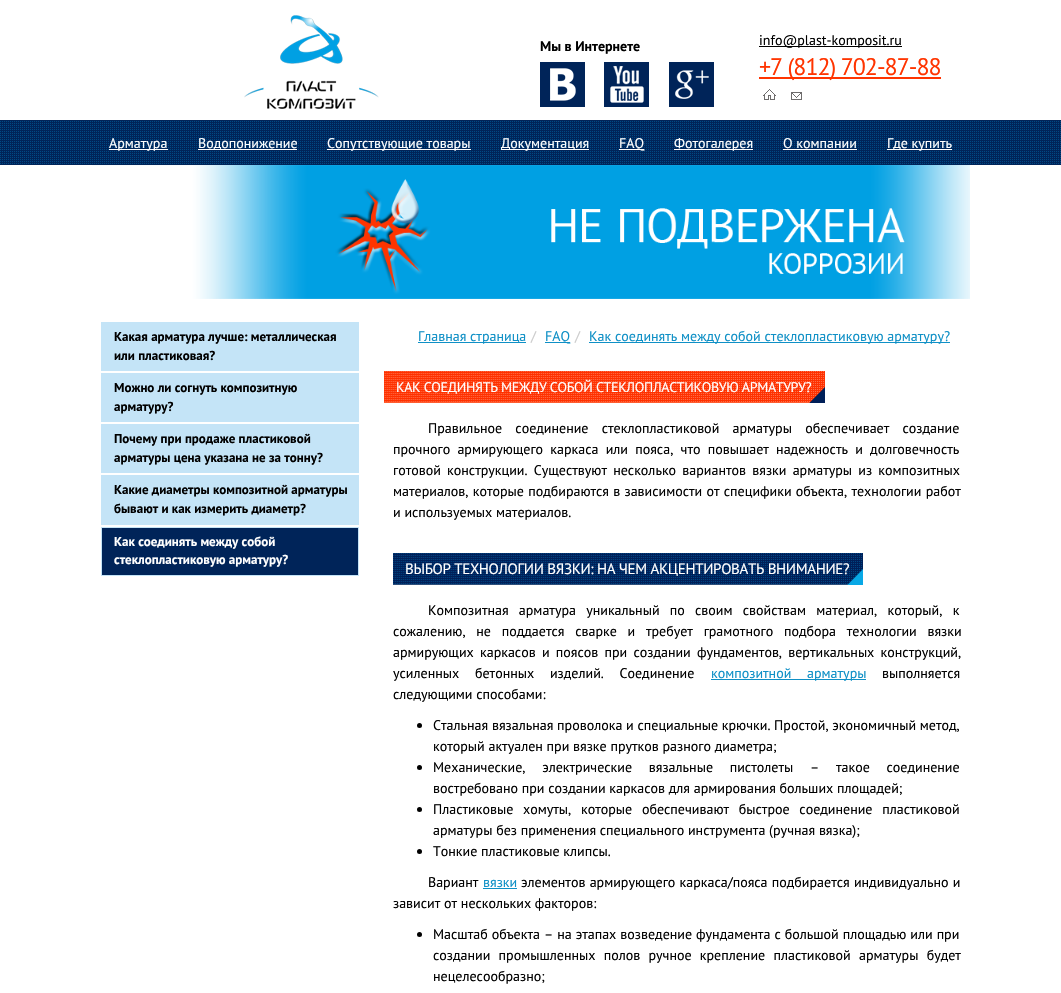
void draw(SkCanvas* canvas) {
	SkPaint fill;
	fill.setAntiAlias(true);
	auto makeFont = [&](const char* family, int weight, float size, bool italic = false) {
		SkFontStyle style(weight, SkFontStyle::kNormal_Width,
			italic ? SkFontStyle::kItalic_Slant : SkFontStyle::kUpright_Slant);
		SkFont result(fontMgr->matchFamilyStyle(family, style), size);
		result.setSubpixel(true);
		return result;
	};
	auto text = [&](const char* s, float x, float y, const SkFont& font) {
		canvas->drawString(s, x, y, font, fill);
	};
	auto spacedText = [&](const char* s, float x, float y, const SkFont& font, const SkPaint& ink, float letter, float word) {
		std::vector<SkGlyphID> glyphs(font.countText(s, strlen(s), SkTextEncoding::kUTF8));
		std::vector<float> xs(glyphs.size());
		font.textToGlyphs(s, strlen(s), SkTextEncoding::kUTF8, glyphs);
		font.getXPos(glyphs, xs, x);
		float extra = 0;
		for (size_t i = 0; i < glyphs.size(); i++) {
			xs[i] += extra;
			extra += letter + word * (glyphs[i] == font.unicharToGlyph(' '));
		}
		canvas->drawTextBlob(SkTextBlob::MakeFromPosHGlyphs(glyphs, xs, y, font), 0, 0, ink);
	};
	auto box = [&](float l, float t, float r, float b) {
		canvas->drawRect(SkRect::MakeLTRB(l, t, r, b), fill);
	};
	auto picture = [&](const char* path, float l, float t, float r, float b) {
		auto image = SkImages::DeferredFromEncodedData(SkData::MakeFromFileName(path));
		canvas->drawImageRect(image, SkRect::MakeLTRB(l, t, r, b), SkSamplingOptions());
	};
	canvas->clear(0xFFFFFFFF);
	picture("image0.png", 244, 15, 379, 109);
	picture("image1.png", 540, 62, 585, 107);
	picture("image2.png", 604, 62, 649, 107);
	picture("image3.png", 669, 62, 714, 107);
	fill.setColor(0xFF000000);
	box(759, 46, 902, 47);
	fill.setColor(0xFFFF3400);
	box(759, 77, 941, 79);
	picture("image4.png", 763, 89, 776, 100);
	picture("image5.png", 791, 92, 802, 100);
	picture("image6.png", 0, 120, 1061, 165);
	fill.setColor(0xFFFFFFFF);
	box(109, 149, 168, 150);
	box(198, 149, 297, 150);
	box(327, 149, 471, 150);
	box(501, 149, 589, 150);
	box(619, 149, 644, 150);
	box(674, 149, 753, 150);
	box(783, 149, 857, 150);
	box(887, 149, 952, 150);
	picture("image7.png", 92, 165, 970, 299);
	fill.setStyle(SkPaint::kStroke_Style);
	fill.setStrokeWidth(1);
	fill.setColor(0xFFC4E4F7);
	canvas->drawRect(SkRect::MakeLTRB(101.5f, 322.5f, 358.5f, 370.5f), fill);
	fill.setStyle(SkPaint::kFill_Style);
	box(102, 323, 358, 370);
	fill.setStyle(SkPaint::kStroke_Style);
	canvas->drawRect(SkRect::MakeLTRB(101.5f, 373.5f, 358.5f, 421.5f), fill);
	fill.setStyle(SkPaint::kFill_Style);
	box(102, 374, 358, 421);
	fill.setStyle(SkPaint::kStroke_Style);
	canvas->drawRect(SkRect::MakeLTRB(101.5f, 424.5f, 358.5f, 472.5f), fill);
	fill.setStyle(SkPaint::kFill_Style);
	box(102, 425, 358, 472);
	fill.setStyle(SkPaint::kStroke_Style);
	canvas->drawRect(SkRect::MakeLTRB(101.5f, 475.5f, 358.5f, 524.5f), fill);
	fill.setStyle(SkPaint::kFill_Style);
	box(102, 476, 358, 524);
	fill.setStyle(SkPaint::kStroke_Style);
	canvas->drawRect(SkRect::MakeLTRB(101.5f, 527.5f, 358.5f, 575.5f), fill);
	fill.setStyle(SkPaint::kFill_Style);
	fill.setColor(0xFF002459);
	box(102, 528, 358, 575);
	fill.setColor(0xFF0F90C6);
	box(418, 342, 526, 343);
	box(545, 342, 570, 343);
	box(589, 342, 950, 343);
	picture("image8.png", 384, 371, 825, 403);
	picture("image9.png", 393, 553, 863, 585);
	box(711, 679, 866, 680);
	fill.setColor(0xFF000000);
	canvas->drawCircle(419.5f, 725.5f, 2.5f, fill);
	canvas->drawCircle(419.5f, 767.5f, 2.5f, fill);
	canvas->drawCircle(419.5f, 809.5f, 2.5f, fill);
	canvas->drawCircle(419.5f, 851.5f, 2.5f, fill);
	fill.setColor(0xFF0F90C6);
	box(483, 888, 517, 889);
	fill.setColor(0xFF000000);
	canvas->drawCircle(419.5f, 934.5f, 2.5f, fill);
	auto font1 = makeFont("PT Sans", 700, 14);
	text("Мы в Интернете", 540, 51, font1);
	auto font2 = makeFont("PT Sans", 400, 14);
	text("info@plast-komposit.ru", 759, 45, font2);
	auto font3 = makeFont("PT Sans", 400, 24);
	fill.setColor(0xFFFF3400);
	spacedText("+7 (812) 702-87-88", 759, 75, font3, fill, -1, 0);
	fill.setColor(0xFFFFFFFF);
	text("Арматура", 109, 148, font2);
	text("Водопонижение", 198, 148, font2);
	text("Сопутствующие товары", 327, 148, font2);
	text("Документация", 501, 148, font2);
	text("FAQ", 619, 148, font2);
	text("Фотогалерея", 674, 148, font2);
	text("О компании", 783, 148, font2);
	text("Где купить", 887, 148, font2);
	auto font4 = makeFont("PT Sans", 700, 13);
	fill.setColor(0xFF000000);
	text("Какая арматура лучше: металлическая", 114, 341, font4);
	text("или пластиковая?", 114, 360, font4);
	text("Можно ли согнуть композитную", 114, 392, font4);
	text("арматуру?", 114, 411, font4);
	text("Почему при продаже пластиковой", 114, 443, font4);
	text("арматуры цена указана не за тонну?", 114, 462, font4);
	text("Какие диаметры композитной арматуры", 114, 494, font4);
	text("бывают и как измерить диаметр?", 114, 513, font4);
	fill.setColor(0xFFFFFFFF);
	text("Как соединять между собой", 114, 546, font4);
	text("стеклопластиковую арматуру?", 114, 564, font4);
	fill.setColor(0xFF0F90C6);
	text("Главная страница", 418, 341, font2);
	fill.setColor(0xFFCCCCCC);
	text("/", 531, 341, font2);
	fill.setColor(0xFF0F90C6);
	text("FAQ", 545, 341, font2);
	fill.setColor(0xFFCCCCCC);
	text("/", 575, 341, font2);
	fill.setColor(0xFF0F90C6);
	text("Как соединять между собой стеклопластиковую арматуру?", 589, 341, font2);
	fill.setColor(0xFFFFFFFF);
	spacedText("КАК СОЕДИНЯТЬ МЕЖДУ СОБОЙ СТЕКЛОПЛАСТИКОВУЮ АРМАТУРУ?", 396, 392, font2, fill, -0.33f, 0);
	fill.setColor(0xFF000000);
	spacedText("Правильное соединение стеклопластиковой арматуры обеспечивает создание", 428, 433, font2, fill, 0, 9.5f);
	spacedText("прочного армирующего каркаса или пояса, что повышает надежность и долговечность", 393, 454, font2, fill, 0, 3.5f);
	spacedText("готовой конструкции. Существуют несколько вариантов вязки арматуры из композитных", 393, 475, font2, fill, 0, 2.5f);
	spacedText("материалов, которые подбираются в зависимости от специфики объекта, технологии работ", 393, 496, font2, fill, 0, 0.5f);
	text("и используемых материалов.", 393, 517, font2);
	auto font5 = makeFont("PT Sans", 400, 15);
	fill.setColor(0xFFFFFFFF);
	spacedText("ВЫБОР ТЕХНОЛОГИИ ВЯЗКИ: НА ЧЕМ АКЦЕНТИРОВАТЬ ВНИМАНИЕ?", 405, 574, font5, fill, -0.33f, 0);
	fill.setColor(0xFF000000);
	spacedText("Композитная арматура уникальный по своим свойствам материал, который, к", 428, 615, font2, fill, 0, 6.5f);
	spacedText("сожалению, не поддается сварке и требует грамотного подбора технологии вязки", 393, 636, font2, fill, 0, 7);
	spacedText("армирующих каркасов и поясов при создании фундаментов, вертикальных конструкций,", 393, 657, font2, fill, 0, 2.5f);
	spacedText("усиленных бетонных изделий. Соединение", 393, 678, font2, fill, 0, 12);
	fill.setColor(0xFF0F90C6);
	spacedText("композитной арматуры", 711, 678, font2, fill, 0, 12);
	fill.setColor(0xFF000000);
	text("выполняется", 882, 678, font2);
	text("следующими способами:", 393, 699, font2);
	text("Стальная вязальная проволока и специальные крючки. Простой, экономичный метод,", 433, 730, font2);
	text("который актуален при вязке прутков разного диаметра;", 433, 751, font2);
	spacedText("Механические, электрические вязальные пистолеты – такое соединение", 433, 772, font2, fill, 0, 13);
	text("востребовано при создании каркасов для армирования больших площадей;", 433, 793, font2);
	spacedText("Пластиковые хомуты, которые обеспечивают быстрое соединение пластиковой", 433, 814, font2, fill, 0, 6);
	text("арматуры без применения специального инструмента (ручная вязка);", 433, 835, font2);
	text("Тонкие пластиковые клипсы.", 433, 856, font2);
	text("Вариант", 428, 887, font2);
	fill.setColor(0xFF0F90C6);
	text("вязки", 483, 887, font2);
	fill.setColor(0xFF000000);
	spacedText("элементов армирующего каркаса/пояса подбирается индивидуально и", 521, 887, font2, fill, 0, 0.5f);
	text("зависит от нескольких факторов:", 393, 908, font2);
	spacedText("Масштаб объекта – на этапах возведение фундамента с большой площадью или при", 433, 939, font2, fill, 0, 0.25f);
	spacedText("создании промышленных полов ручное крепление пластиковой арматуры будет", 433, 960, font2, fill, 0, 4.5f);
	text("нецелесообразно;", 433, 981, font2);
}
